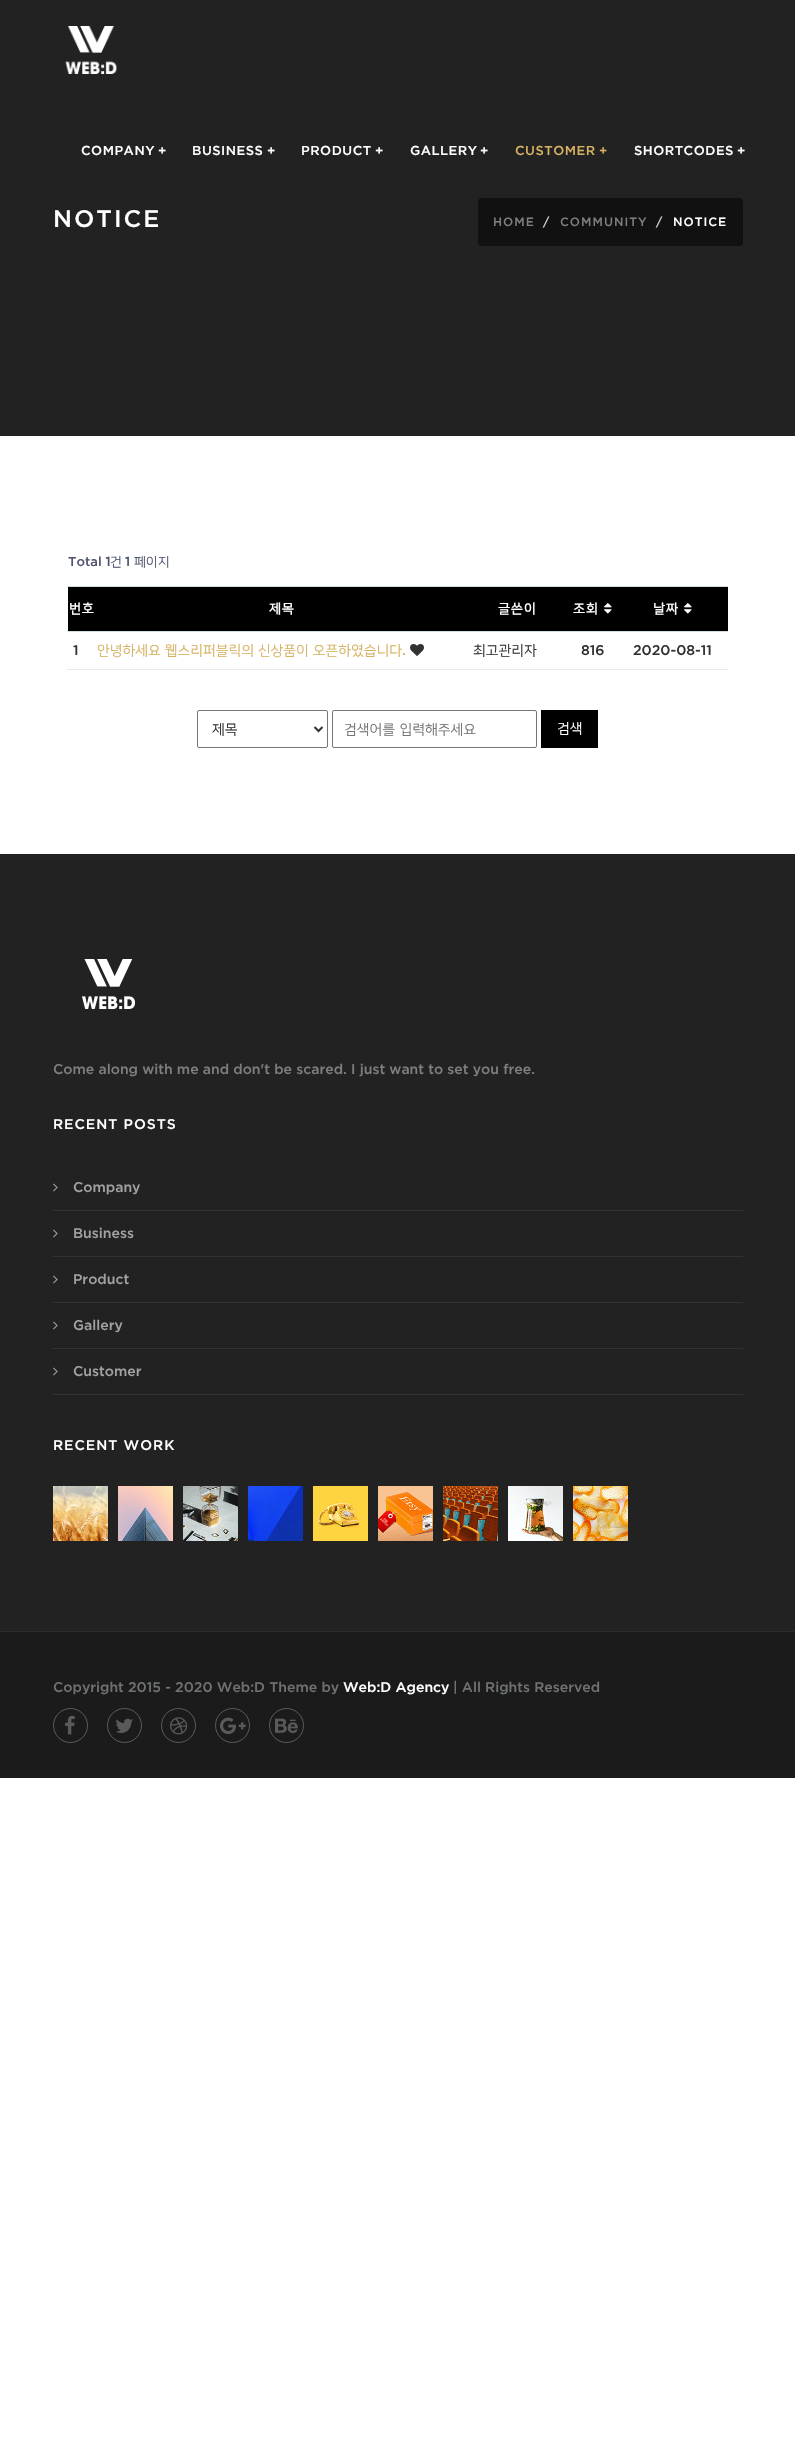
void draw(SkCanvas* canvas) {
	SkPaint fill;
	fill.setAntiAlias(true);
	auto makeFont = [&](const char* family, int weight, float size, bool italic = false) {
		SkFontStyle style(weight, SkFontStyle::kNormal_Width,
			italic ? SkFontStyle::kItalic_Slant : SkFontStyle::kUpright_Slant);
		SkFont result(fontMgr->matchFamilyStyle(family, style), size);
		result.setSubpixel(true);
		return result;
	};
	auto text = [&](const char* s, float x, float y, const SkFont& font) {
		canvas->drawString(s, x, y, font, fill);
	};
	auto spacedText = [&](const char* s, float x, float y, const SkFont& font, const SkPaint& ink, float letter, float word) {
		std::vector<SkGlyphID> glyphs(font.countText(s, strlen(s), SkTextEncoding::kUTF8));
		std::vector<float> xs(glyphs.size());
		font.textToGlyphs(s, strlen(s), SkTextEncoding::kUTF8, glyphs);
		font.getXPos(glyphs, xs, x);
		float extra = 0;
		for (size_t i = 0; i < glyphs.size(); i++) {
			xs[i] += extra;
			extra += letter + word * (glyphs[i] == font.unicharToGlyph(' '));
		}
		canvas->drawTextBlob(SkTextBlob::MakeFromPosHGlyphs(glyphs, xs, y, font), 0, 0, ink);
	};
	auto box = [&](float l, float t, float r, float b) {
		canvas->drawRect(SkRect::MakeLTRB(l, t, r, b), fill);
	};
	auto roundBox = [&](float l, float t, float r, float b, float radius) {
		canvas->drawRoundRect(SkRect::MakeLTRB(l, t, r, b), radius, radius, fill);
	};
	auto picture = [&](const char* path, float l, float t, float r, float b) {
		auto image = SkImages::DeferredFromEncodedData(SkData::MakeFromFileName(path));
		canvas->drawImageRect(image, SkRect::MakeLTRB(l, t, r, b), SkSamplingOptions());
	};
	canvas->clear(0xFFFFFFFF);
	fill.setColor(0xFF222222);
	box(0, 0, 795, 436);
	picture("image0.png", 65, 26, 117, 74);
	fill.setColor(0xFF111111);
	roundBox(478, 198, 743, 246, 4);
	fill.setColor(0xFF000000);
	box(68, 587, 728, 631);
	picture("image1.png", 604, 603, 612, 614);
	fill.setColor(0xFFD1DEE2);
	box(67, 586, 728, 587);
	box(67, 631, 728, 632);
	picture("image1.png", 684, 603, 692, 614);
	picture("image2.png", 410, 644, 424, 656);
	fill.setColor(0xFFE9E9E9);
	box(67, 669, 728, 670);
	fill.setStyle(SkPaint::kStroke_Style);
	fill.setStrokeWidth(1);
	fill.setColor(0xFF767676);
	canvas->drawRoundRect(SkRect::MakeLTRB(197.5f, 710.5f, 327.5f, 747.5f), 1.5f, 1.5f, fill);
	fill.setStrokeWidth(2);
	fill.setColor(0xFF323232);
	canvas->drawPath(SkPathBuilder().moveTo(314.5f, 727).lineTo(318.5f, 731).lineTo(322.5f, 727).detach(), fill);
	fill.setStrokeWidth(1);
	fill.setColor(0xFF767676);
	canvas->drawRoundRect(SkRect::MakeLTRB(332.5f, 710.5f, 536.5f, 747.5f), 1.5f, 1.5f, fill);
	fill.setStyle(SkPaint::kFill_Style);
	fill.setColor(0xFF000000);
	box(541, 710, 598, 748);
	fill.setColor(0xFF222222);
	box(0, 854, 795, 1631);
	picture("image3.png", 82, 959, 135, 1009);
	fill.setColor(0xFF333333);
	box(53, 1210, 743, 1211);
	picture("image4.png", 53, 1183, 58, 1192);
	box(53, 1256, 743, 1257);
	picture("image4.png", 53, 1229, 58, 1238);
	box(53, 1302, 743, 1303);
	picture("image4.png", 53, 1275, 58, 1284);
	box(53, 1348, 743, 1349);
	picture("image4.png", 53, 1321, 58, 1330);
	box(53, 1394, 743, 1395);
	picture("image4.png", 53, 1367, 58, 1376);
	picture("image5.png", 53, 1486, 108, 1541);
	picture("image6.png", 118, 1486, 173, 1541);
	picture("image7.png", 183, 1486, 238, 1541);
	picture("image8.png", 248, 1486, 303, 1541);
	picture("image9.png", 313, 1486, 368, 1541);
	picture("image10.png", 378, 1486, 433, 1541);
	picture("image11.png", 443, 1486, 498, 1541);
	picture("image12.png", 508, 1486, 563, 1541);
	picture("image13.png", 573, 1486, 628, 1541);
	fill.setColor(0xFF1B1B1B);
	box(0, 1632, 795, 1778);
	fill.setColor(0xFF2C2C2C);
	box(0, 1631, 795, 1632);
	fill.setStyle(SkPaint::kStroke_Style);
	fill.setColor(0xFF5A5A5A);
	canvas->drawCircle(70.5f, 1725.5f, 17, fill);
	picture("image14.png", 65, 1715, 75, 1735);
	canvas->drawCircle(124.5f, 1725.5f, 17, fill);
	picture("image15.png", 116, 1718, 133, 1733);
	canvas->drawCircle(178.5f, 1725.5f, 17, fill);
	picture("image16.png", 170, 1717, 188, 1735);
	canvas->drawCircle(232.5f, 1725.5f, 17, fill);
	picture("image17.png", 220, 1717, 246, 1734);
	canvas->drawCircle(286.5f, 1725.5f, 17, fill);
	picture("image18.png", 275, 1718, 298, 1733);
	auto font1 = makeFont("Gotham", 500, 13);
	fill.setStyle(SkPaint::kFill_Style);
	fill.setColor(0xFFFFFFFF);
	spacedText("COMPANY", 81, 155, font1, fill, 0.5f, 0);
	spacedText("+", 158, 155, font1, fill, 0.5f, 0);
	spacedText("BUSINESS", 192, 155, font1, fill, 0.5f, 0);
	spacedText("+", 267, 155, font1, fill, 0.5f, 0);
	spacedText("PRODUCT", 301, 155, font1, fill, 0.5f, 0);
	spacedText("+", 375, 155, font1, fill, 0.5f, 0);
	spacedText("GALLERY", 410, 155, font1, fill, 0.5f, 0);
	spacedText("+", 480, 155, font1, fill, 0.5f, 0);
	fill.setColor(0xFFD6B161);
	spacedText("CUSTOMER", 515, 155, font1, fill, 0.5f, 0);
	spacedText("+", 599, 155, font1, fill, 0.5f, 0);
	fill.setColor(0xFFFFFFFF);
	spacedText("SHORTCODES", 634, 155, font1, fill, 0.5f, 0);
	spacedText("+", 737, 155, font1, fill, 0.5f, 0);
	auto font2 = makeFont("Gotham", 500, 24);
	spacedText("NOTICE", 53, 227, font2, fill, 2, 0);
	auto font3 = makeFont("Gotham", 500, 12);
	fill.setColor(0xFF7E7E7E);
	spacedText("HOME", 493, 226, font3, fill, 1, 0);
	fill.setColor(0xFFCCCCCC);
	spacedText("/", 543, 226, font3, fill, 1, 0);
	fill.setColor(0xFF7E7E7E);
	spacedText("COMMUNITY", 560, 226, font3, fill, 1, 0);
	fill.setColor(0xFFCCCCCC);
	spacedText("/", 656, 226, font3, fill, 1, 0);
	fill.setColor(0xFFFFFFFF);
	spacedText("NOTICE", 673, 226, font3, fill, 1, 0);
	fill.setColor(0xFF4E546F);
	text("Total 1", 68, 566, font1);
	auto font4 = makeFont("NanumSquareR", 400, 13);
	text("건", 110, 566, font4);
	text("1", 125, 566, font1);
	text("페이지", 134, 566, font4);
	auto font5 = makeFont("NanumSquareR", 700, 13);
	fill.setColor(0xFFFFFFFF);
	spacedText("번호", 69, 613, font5, fill, 1, 0);
	spacedText("제목", 269, 613, font5, fill, 1, 0);
	spacedText("글쓴이", 498, 613, font5, fill, 1, 0);
	spacedText("조회", 573, 613, font5, fill, 1, 0);
	spacedText("날짜", 653, 613, font5, fill, 1, 0);
	auto font6 = makeFont("Gotham", 500, 14);
	fill.setColor(0xFF323232);
	text("1", 73, 655, font6);
	auto font7 = makeFont("NanumSquareR", 400, 14);
	fill.setColor(0xFFD6B161);
	spacedText("안녕하세요 웹스리퍼블릭의 신상품이 오픈하였습니다", 97, 655, font7, fill, 0, 0.5f);
	text(".", 402, 655, font6);
	fill.setColor(0xFF323232);
	text("최고관리자", 473, 655, font7);
	text("816", 581, 655, font6);
	text("2020-08-11", 633, 655, font6);
	text("제목", 212, 734, font7);
	fill.setColor(0xFF757575);
	spacedText("검색어를 입력해주세요", 344, 734, font7, fill, 0, 1);
	fill.setColor(0xFFFFFFFF);
	text("검색", 557, 733, font7);
	fill.setColor(0xFF7E7E7E);
	text("Come along with me and don't be scared. I just want to set you free.", 53, 1074, font6);
	fill.setColor(0xFFFFFFFF);
	spacedText("RECENT POSTS", 53, 1129, font6, fill, 1, 0);
	fill.setColor(0xFFA2A2A2);
	text("Company", 73, 1192, font6);
	text("Business", 73, 1238, font6);
	text("Product", 73, 1284, font6);
	text("Gallery", 73, 1330, font6);
	text("Customer", 73, 1376, font6);
	fill.setColor(0xFFFFFFFF);
	spacedText("RECENT WORK", 53, 1450, font6, fill, 1, 0);
	fill.setColor(0xFF6F7273);
	text("Copyright 2015 - 2020 Web:D Theme by", 53, 1692, font6);
	fill.setColor(0xFFFFFFFF);
	text("Web:D Agency", 343, 1692, font6);
	fill.setColor(0xFF6F7273);
	text("| All Rights Reserved", 453, 1692, font6);
}
